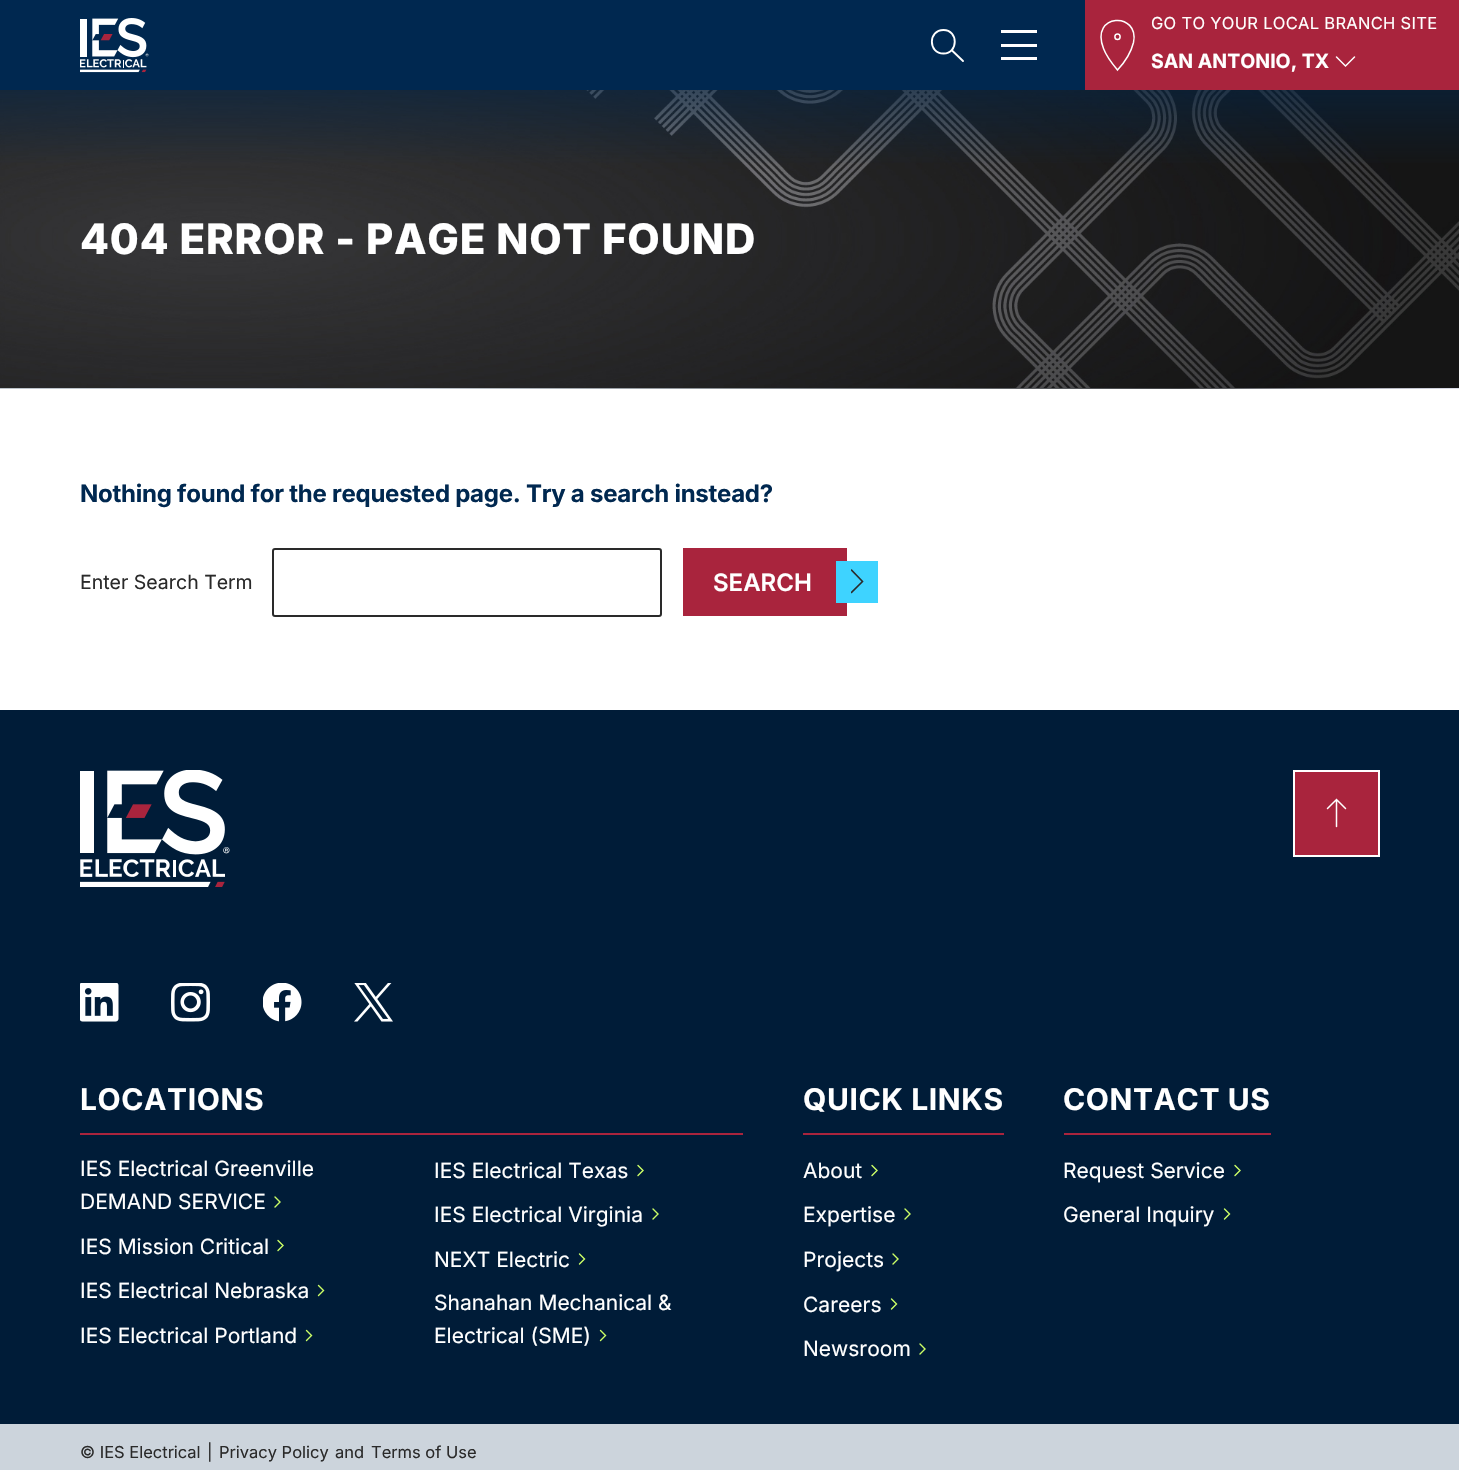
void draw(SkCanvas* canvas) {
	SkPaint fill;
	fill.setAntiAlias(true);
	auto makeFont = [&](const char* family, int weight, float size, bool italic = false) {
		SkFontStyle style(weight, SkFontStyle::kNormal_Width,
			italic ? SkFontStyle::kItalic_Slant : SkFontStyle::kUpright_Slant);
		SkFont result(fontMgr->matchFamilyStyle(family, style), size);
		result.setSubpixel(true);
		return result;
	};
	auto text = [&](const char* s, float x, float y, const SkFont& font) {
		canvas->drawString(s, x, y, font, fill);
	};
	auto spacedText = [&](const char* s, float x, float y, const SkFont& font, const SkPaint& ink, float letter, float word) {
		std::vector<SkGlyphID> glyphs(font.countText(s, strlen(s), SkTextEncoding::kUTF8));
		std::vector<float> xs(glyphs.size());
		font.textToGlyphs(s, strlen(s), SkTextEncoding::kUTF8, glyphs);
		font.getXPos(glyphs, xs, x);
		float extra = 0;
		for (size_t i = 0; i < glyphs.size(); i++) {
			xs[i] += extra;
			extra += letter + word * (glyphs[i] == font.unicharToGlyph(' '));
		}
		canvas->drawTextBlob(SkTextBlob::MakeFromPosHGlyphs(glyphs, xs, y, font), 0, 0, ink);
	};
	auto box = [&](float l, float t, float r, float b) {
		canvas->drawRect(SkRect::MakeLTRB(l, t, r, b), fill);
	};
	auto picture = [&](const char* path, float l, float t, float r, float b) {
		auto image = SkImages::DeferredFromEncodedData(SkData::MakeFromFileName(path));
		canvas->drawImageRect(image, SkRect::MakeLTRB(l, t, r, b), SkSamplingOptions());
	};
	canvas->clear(0xFFFFFFFF);
	fill.setColor(0xFF002850);
	box(0, 0, 1085, 90);
	picture("image0.png", 80, 18, 149, 73);
	fill.setStyle(SkPaint::kStroke_Style);
	fill.setStrokeWidth(1.9f);
	fill.setStrokeCap(SkPaint::kRound_Cap);
	fill.setColor(0xFFFFFFFF);
	canvas->drawPath(SkPathBuilder().moveTo(952, 50.5f).lineTo(963, 61).detach(), fill);
	fill.setStrokeCap(SkPaint::kButt_Cap);
	canvas->drawPath(SkPathBuilder().moveTo(943.5f, 53.5f).cubicTo(958.5f, 53.5f, 958.5f, 30, 943.5f, 30).cubicTo(928, 30, 928, 53.5f, 943.5f, 53.5f).close().detach(), fill);
	fill.setStyle(SkPaint::kFill_Style);
	box(1001, 44, 1037, 47);
	box(1001, 30, 1037, 33);
	box(1001, 57, 1037, 60);
	fill.setColor(0xFFA9243D);
	box(1085, 0, 1459, 90);
	fill.setStyle(SkPaint::kStroke_Style);
	fill.setStrokeWidth(1.5f);
	fill.setColor(0xFFFFFFFF);
	canvas->drawPath(SkPathBuilder().moveTo(1117.5f, 70).cubicTo(1124.5f, 62.5f, 1131, 52.5f, 1133.5f, 42.5f).cubicTo(1140, 11.5f, 1089.5f, 13, 1103.5f, 48.5f).cubicTo(1106.5f, 56.5f, 1112, 63.5f, 1117.5f, 70).close().moveTo(1117.5f, 39.5f).cubicTo(1121, 39.5f, 1121, 34, 1117.5f, 34).cubicTo(1114, 34, 1114, 39.5f, 1117.5f, 39.5f).close().detach(), fill);
	fill.setStrokeCap(SkPaint::kRound_Cap);
	canvas->drawPath(SkPathBuilder().moveTo(1336.5f, 57).lineTo(1345.5f, 66).lineTo(1354.5f, 57).detach(), fill);
	picture("image1.png", 0, 90, 1459, 388);
	fill.setStyle(SkPaint::kFill_Style);
	{
		const SkColor colors[] = {0xFF002850, 0x00002850};
		const float stops[] = {0, 1};
		const SkPoint ends[] = {{730, -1.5f}, {730, 167}};
		fill.setShader(SkGradientShader::MakeLinear(ends, colors, stops, 2, SkTileMode::kClamp));
		fill.setAlpha(255);
	}
	box(0, 90, 1459, 163);
	{
		const SkColor colors[] = {0xFFBCC3CA, 0xFF414346, 0xFFDDDFEB};
		const float stops[] = {0.29f, 0.81f, 1};
		const SkPoint ends[] = {{-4.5f, 212}, {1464, 265}};
		fill.setShader(SkGradientShader::MakeLinear(ends, colors, stops, 3, SkTileMode::kClamp));
		fill.setAlpha(255);
	}
	box(0, 388, 1459, 389);
	fill.setStyle(SkPaint::kStroke_Style);
	fill.setStrokeWidth(2);
	fill.setStrokeCap(SkPaint::kButt_Cap);
	fill.setShader(nullptr);
	fill.setColor(0xFF2A2A2A);
	canvas->drawRoundRect(SkRect::MakeLTRB(273, 549, 661, 616), 2, 2, fill);
	fill.setStyle(SkPaint::kFill_Style);
	fill.setColor(0xFFA9243D);
	box(683, 548, 847, 616);
	fill.setColor(0xFF3ED3FF);
	box(836, 561, 878, 603);
	canvas->save();
	canvas->clipRect(SkRect::MakeLTRB(851, 569, 864, 594));
	fill.setStyle(SkPaint::kStroke_Style);
	fill.setStrokeWidth(1.6f);
	fill.setStrokeCap(SkPaint::kRound_Cap);
	fill.setColor(0xFF2A2A2A);
	canvas->drawPath(SkPathBuilder().moveTo(851.5f, 592.5f).lineTo(862.5f, 581.5f).lineTo(851.5f, 570).detach(), fill);
	canvas->restore();
	fill.setStyle(SkPaint::kFill_Style);
	fill.setColor(0xFF001C38);
	box(0, 710, 1459, 1424);
	picture("image2.png", 80, 770, 230, 887);
	fill.setColor(0xFFA9243D);
	canvas->drawRect(SkRect::MakeLTRB(1294, 771, 1379, 856), fill);
	fill.setStyle(SkPaint::kStroke_Style);
	fill.setStrokeWidth(2);
	fill.setStrokeCap(SkPaint::kButt_Cap);
	fill.setColor(0xFFFFFFFF);
	canvas->drawRect(SkRect::MakeLTRB(1294, 771, 1379, 856), fill);
	fill.setStrokeWidth(1.5f);
	fill.setStrokeCap(SkPaint::kRound_Cap);
	canvas->drawPath(SkPathBuilder().moveTo(1336.5f, 826.5f).lineTo(1336.5f, 799.5f).moveTo(1345.5f, 808.5f).lineTo(1336.5f, 799.5f).lineTo(1327.5f, 808.5f).detach(), fill);
	picture("image3.png", 80, 983, 119, 1022);
	picture("image4.png", 171, 983, 210, 1022);
	picture("image5.png", 263, 983, 302, 1022);
	picture("image6.png", 354, 983, 393, 1022);
	fill.setStyle(SkPaint::kFill_Style);
	fill.setColor(0xFFA9243D);
	box(80, 1133, 743, 1135);
	fill.setStyle(SkPaint::kStroke_Style);
	fill.setStrokeWidth(1.4f);
	fill.setColor(0xFFCCFF66);
	canvas->drawPath(SkPathBuilder().moveTo(275, 1207).lineTo(280, 1202).lineTo(275, 1197).detach(), fill);
	canvas->drawPath(SkPathBuilder().moveTo(638, 1175.5f).lineTo(643, 1170.5f).lineTo(638, 1165.5f).detach(), fill);
	canvas->drawPath(SkPathBuilder().moveTo(653, 1219).lineTo(658, 1214).lineTo(653, 1209).detach(), fill);
	canvas->drawPath(SkPathBuilder().moveTo(278, 1250.5f).lineTo(283, 1245.5f).lineTo(278, 1240.5f).detach(), fill);
	canvas->drawPath(SkPathBuilder().moveTo(579.5f, 1264).lineTo(584.5f, 1259).lineTo(579.5f, 1254).detach(), fill);
	canvas->drawPath(SkPathBuilder().moveTo(318.5f, 1295.5f).lineTo(323.5f, 1290.5f).lineTo(318.5f, 1285.5f).detach(), fill);
	canvas->drawPath(SkPathBuilder().moveTo(306.5f, 1340.5f).lineTo(311.5f, 1335.5f).lineTo(306.5f, 1330.5f).detach(), fill);
	canvas->drawPath(SkPathBuilder().moveTo(600.5f, 1340.5f).lineTo(605.5f, 1335.5f).lineTo(600.5f, 1330.5f).detach(), fill);
	fill.setStyle(SkPaint::kFill_Style);
	fill.setColor(0xFFA9243D);
	box(803, 1133, 1004, 1135);
	fill.setStyle(SkPaint::kStroke_Style);
	fill.setColor(0xFFCCFF66);
	canvas->drawPath(SkPathBuilder().moveTo(872, 1175.5f).lineTo(877, 1170.5f).lineTo(872, 1165.5f).detach(), fill);
	canvas->drawPath(SkPathBuilder().moveTo(905, 1219).lineTo(910, 1214).lineTo(905, 1209).detach(), fill);
	canvas->drawPath(SkPathBuilder().moveTo(893, 1264).lineTo(898, 1259).lineTo(893, 1254).detach(), fill);
	canvas->drawPath(SkPathBuilder().moveTo(891.5f, 1309).lineTo(896.5f, 1304).lineTo(891.5f, 1299).detach(), fill);
	canvas->drawPath(SkPathBuilder().moveTo(920, 1354).lineTo(925, 1349).lineTo(920, 1344).detach(), fill);
	fill.setStyle(SkPaint::kFill_Style);
	fill.setColor(0xFFA9243D);
	box(1064, 1133, 1271, 1135);
	fill.setStyle(SkPaint::kStroke_Style);
	fill.setColor(0xFFCCFF66);
	canvas->drawPath(SkPathBuilder().moveTo(1235, 1175.5f).lineTo(1240, 1170.5f).lineTo(1235, 1165.5f).detach(), fill);
	canvas->drawPath(SkPathBuilder().moveTo(1224.5f, 1219).lineTo(1229.5f, 1214).lineTo(1224.5f, 1209).detach(), fill);
	fill.setStyle(SkPaint::kFill_Style);
	fill.setColor(0xFFCCD4DC);
	box(0, 1424, 1459, 1470);
	auto font1 = makeFont("Inter", 400, 16.5f);
	fill.setColor(0xFFFFFFFF);
	spacedText("GO TO YOUR LOCAL BRANCH SITE", 1151, 29, font1, fill, 0.3f, 0);
	auto font2 = makeFont("Inter", 700, 19.5f);
	text("SAN ANTONIO, TX", 1151, 68, font2);
	auto font3 = makeFont("Inter", 800, 42);
	spacedText("404 ERROR - PAGE NOT FOUND", 80, 254, font3, fill, 0.85f, 0);
	auto font4 = makeFont("Inter", 700, 24);
	fill.setColor(0xFF002850);
	spacedText("Nothing found for the requested page. Try a search instead?", 80, 502, font4, fill, -0.25f, 0);
	auto font5 = makeFont("Inter", 400, 19.5f);
	fill.setColor(0xFF2A2A2A);
	text("Enter Search Term", 80, 589, font5);
	auto font6 = makeFont("Inter", 600, 24);
	fill.setColor(0xFFFFFFFF);
	text("SEARCH", 713, 591, font6);
	auto font7 = makeFont("Inter", 700, 30);
	spacedText("LOCATIONS", 80, 1110, font7, fill, 0.6f, 0);
	auto font8 = makeFont("Inter", 400, 21);
	text("IES Electrical Greenville", 80, 1176, font8);
	text("DEMAND SERVICE", 80, 1209, font8);
	text("IES Electrical Texas", 434, 1178, font8);
	text("IES Electrical Virginia", 434, 1222, font8);
	text("IES Mission Critical", 80, 1254, font8);
	text("NEXT Electric", 434, 1267, font8);
	text("IES Electrical Nebraska", 80, 1298, font8);
	text("IES Electrical Portland", 80, 1343, font8);
	text("Shanahan Mechanical &", 434, 1310, font8);
	text("Electrical (SME)", 434, 1343, font8);
	spacedText("QUICK LINKS", 803, 1110, font7, fill, 0.6f, 0);
	text("About", 803, 1178, font8);
	text("Expertise", 803, 1222, font8);
	text("Projects", 803, 1267, font8);
	text("Careers", 803, 1312, font8);
	text("Newsroom", 803, 1356, font8);
	spacedText("CONTACT US", 1063, 1110, font7, fill, 0.6f, 0);
	text("Request Service", 1063, 1178, font8);
	text("General Inquiry", 1063, 1222, font8);
	fill.setColor(0xFF2A2A2A);
	text("© IES Electrical", 80, 1458, font1);
	text("|", 207, 1458, font1);
	text("Privacy Policy", 219, 1458, font1);
	text("and", 335, 1458, font1);
	text("Terms of Use", 371, 1458, font1);
}
